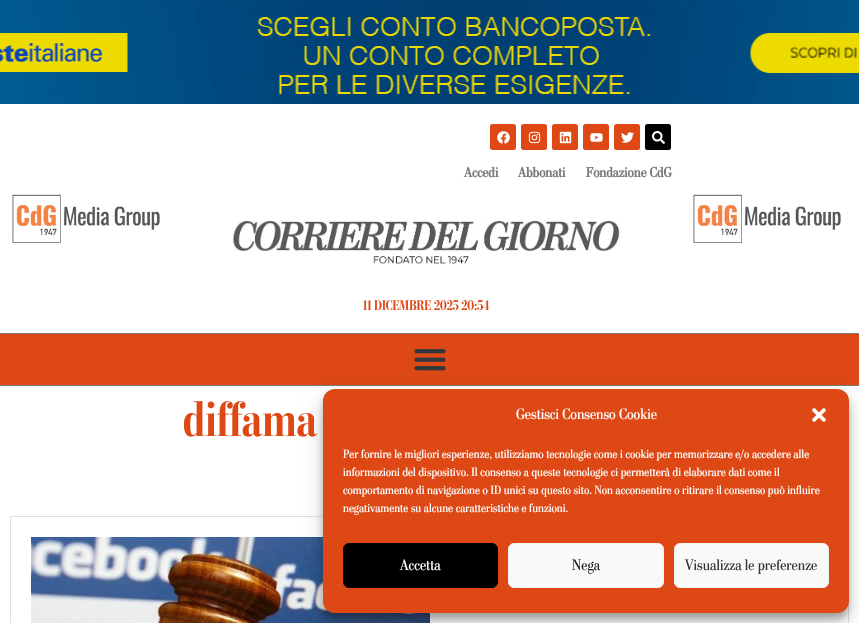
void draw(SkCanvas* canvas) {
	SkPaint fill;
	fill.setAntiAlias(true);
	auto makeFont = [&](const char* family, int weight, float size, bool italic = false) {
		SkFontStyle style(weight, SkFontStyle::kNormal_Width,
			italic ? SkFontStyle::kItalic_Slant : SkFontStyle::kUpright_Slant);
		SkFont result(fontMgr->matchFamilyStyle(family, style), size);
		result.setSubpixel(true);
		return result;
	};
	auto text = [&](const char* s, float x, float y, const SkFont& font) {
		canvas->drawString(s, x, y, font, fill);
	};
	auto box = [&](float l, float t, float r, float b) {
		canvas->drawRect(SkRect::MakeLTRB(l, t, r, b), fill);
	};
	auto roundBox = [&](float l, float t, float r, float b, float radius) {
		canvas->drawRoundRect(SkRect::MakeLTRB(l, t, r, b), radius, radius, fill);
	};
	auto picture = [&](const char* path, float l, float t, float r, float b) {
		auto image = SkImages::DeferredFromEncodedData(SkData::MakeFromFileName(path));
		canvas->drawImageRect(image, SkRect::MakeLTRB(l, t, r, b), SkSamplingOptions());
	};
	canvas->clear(0xFFFFFFFF);
	picture("image0.png", 0, 0, 859, 104);
	picture("image1.png", 12, 193, 160, 245);
	fill.setColor(0xFFDD4814);
	roundBox(490, 124, 516, 150, 2.5f);
	picture("image2.png", 497, 131, 510, 144);
	roundBox(521, 124, 547, 150, 2.5f);
	picture("image3.png", 528, 131, 541, 144);
	roundBox(552, 124, 578, 150, 2.5f);
	picture("image4.png", 559, 131, 572, 144);
	roundBox(583, 124, 609, 150, 2.5f);
	picture("image5.png", 590, 133, 603, 142);
	roundBox(614, 124, 640, 150, 2.5f);
	picture("image6.png", 621, 132, 634, 143);
	fill.setColor(0xFF010101);
	roundBox(645, 124, 671, 150, 2.5f);
	picture("image7.png", 652, 131, 665, 144);
	picture("image8.png", 233, 221, 620, 264);
	picture("image9.png", 693, 193, 841, 245);
	fill.setColor(0xFFDD4814);
	box(0, 334, 859, 385);
	fill.setColor(0xFF7A7A7A);
	box(0, 333, 859, 334);
	box(0, 385, 859, 386);
	picture("image10.png", 414, 349, 446, 371);
	fill.setStyle(SkPaint::kStroke_Style);
	fill.setStrokeWidth(1);
	fill.setColor(0xFFE0E0E0);
	canvas->drawRect(SkRect::MakeLTRB(10.5f, 516.5f, 848.5f, 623.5f), fill);
	picture("image11.png", 31, 537, 430, 623);
	fill.setStyle(SkPaint::kFill_Style);
	fill.setColor(0x3B000000);
	fill.setMaskFilter(SkMaskFilter::MakeBlur(kNormal_SkBlurStyle, 3));
	canvas->drawRoundRect(SkRect::MakeLTRB(323, 395, 849, 619), 12, 12, fill);
	fill.setMaskFilter(nullptr);
	fill.setColor(0x30000000);
	fill.setMaskFilter(SkMaskFilter::MakeBlur(kNormal_SkBlurStyle, 10));
	canvas->drawRoundRect(SkRect::MakeLTRB(323, 399, 849, 623), 12, 12, fill);
	fill.setMaskFilter(nullptr);
	fill.setColor(0xFFDD4814);
	roundBox(323, 389, 849, 613, 12);
	picture("image12.png", 812, 408, 826, 422);
	fill.setColor(0xFF000000);
	canvas->drawRoundRect(SkRect::MakeLTRB(343.5f, 543.5f, 497.5f, 587.5f), 5.5f, 5.5f, fill);
	fill.setStyle(SkPaint::kStroke_Style);
	canvas->drawRoundRect(SkRect::MakeLTRB(343.5f, 543.5f, 497.5f, 587.5f), 5.5f, 5.5f, fill);
	fill.setStyle(SkPaint::kFill_Style);
	fill.setColor(0xFFF9F9F9);
	canvas->drawRoundRect(SkRect::MakeLTRB(508.5f, 543.5f, 663.5f, 587.5f), 5.5f, 5.5f, fill);
	fill.setStyle(SkPaint::kStroke_Style);
	fill.setColor(0xFFF2F2F2);
	canvas->drawRoundRect(SkRect::MakeLTRB(508.5f, 543.5f, 663.5f, 587.5f), 5.5f, 5.5f, fill);
	fill.setStyle(SkPaint::kFill_Style);
	fill.setColor(0xFFF9F9F9);
	canvas->drawRoundRect(SkRect::MakeLTRB(674.5f, 543.5f, 828.5f, 587.5f), 5.5f, 5.5f, fill);
	fill.setStyle(SkPaint::kStroke_Style);
	fill.setColor(0xFFF2F2F2);
	canvas->drawRoundRect(SkRect::MakeLTRB(674.5f, 543.5f, 828.5f, 587.5f), 5.5f, 5.5f, fill);
	auto font1 = makeFont("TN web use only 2", 700, 14);
	fill.setStyle(SkPaint::kFill_Style);
	fill.setColor(0xFF7A7A7A);
	text("Accedi", 464, 177, font1);
	text("Abbonati", 518, 177, font1);
	text("Fondazione CdG", 586, 177, font1);
	auto font2 = makeFont("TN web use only", 700, 14);
	fill.setColor(0xFFDD4814);
	text("11 DICEMBRE 2025 20:54", 363, 310, font2);
	auto font3 = makeFont("TN web use only", 700, 50);
	text("diffama", 183, 436, font3);
	auto font4 = makeFont("TN web use only", 400, 15);
	fill.setColor(0xFFFFFFFF);
	text("Gestisci Consenso Cookie", 516, 419, font4);
	auto font5 = makeFont("TN web use only", 400, 12);
	text("Per fornire le migliori esperienze, utilizziamo tecnologie come i cookie per memorizzare e/o accedere alle", 343, 458, font5);
	text("informazioni del dispositivo. Il consenso a queste tecnologie ci permetterà di elaborare dati come il", 343, 476, font5);
	text("comportamento di navigazione o ID unici su questo sito. Non acconsentire o ritirare il consenso può influire", 343, 494, font5);
	text("negativamente su alcune caratteristiche e funzioni.", 343, 512, font5);
	text("Accetta", 400, 570, font4);
	fill.setColor(0xFF222222);
	text("Nega", 572, 570, font4);
	fill.setColor(0xFF333333);
	text("Visualizza le preferenze", 685, 570, font4);
}
